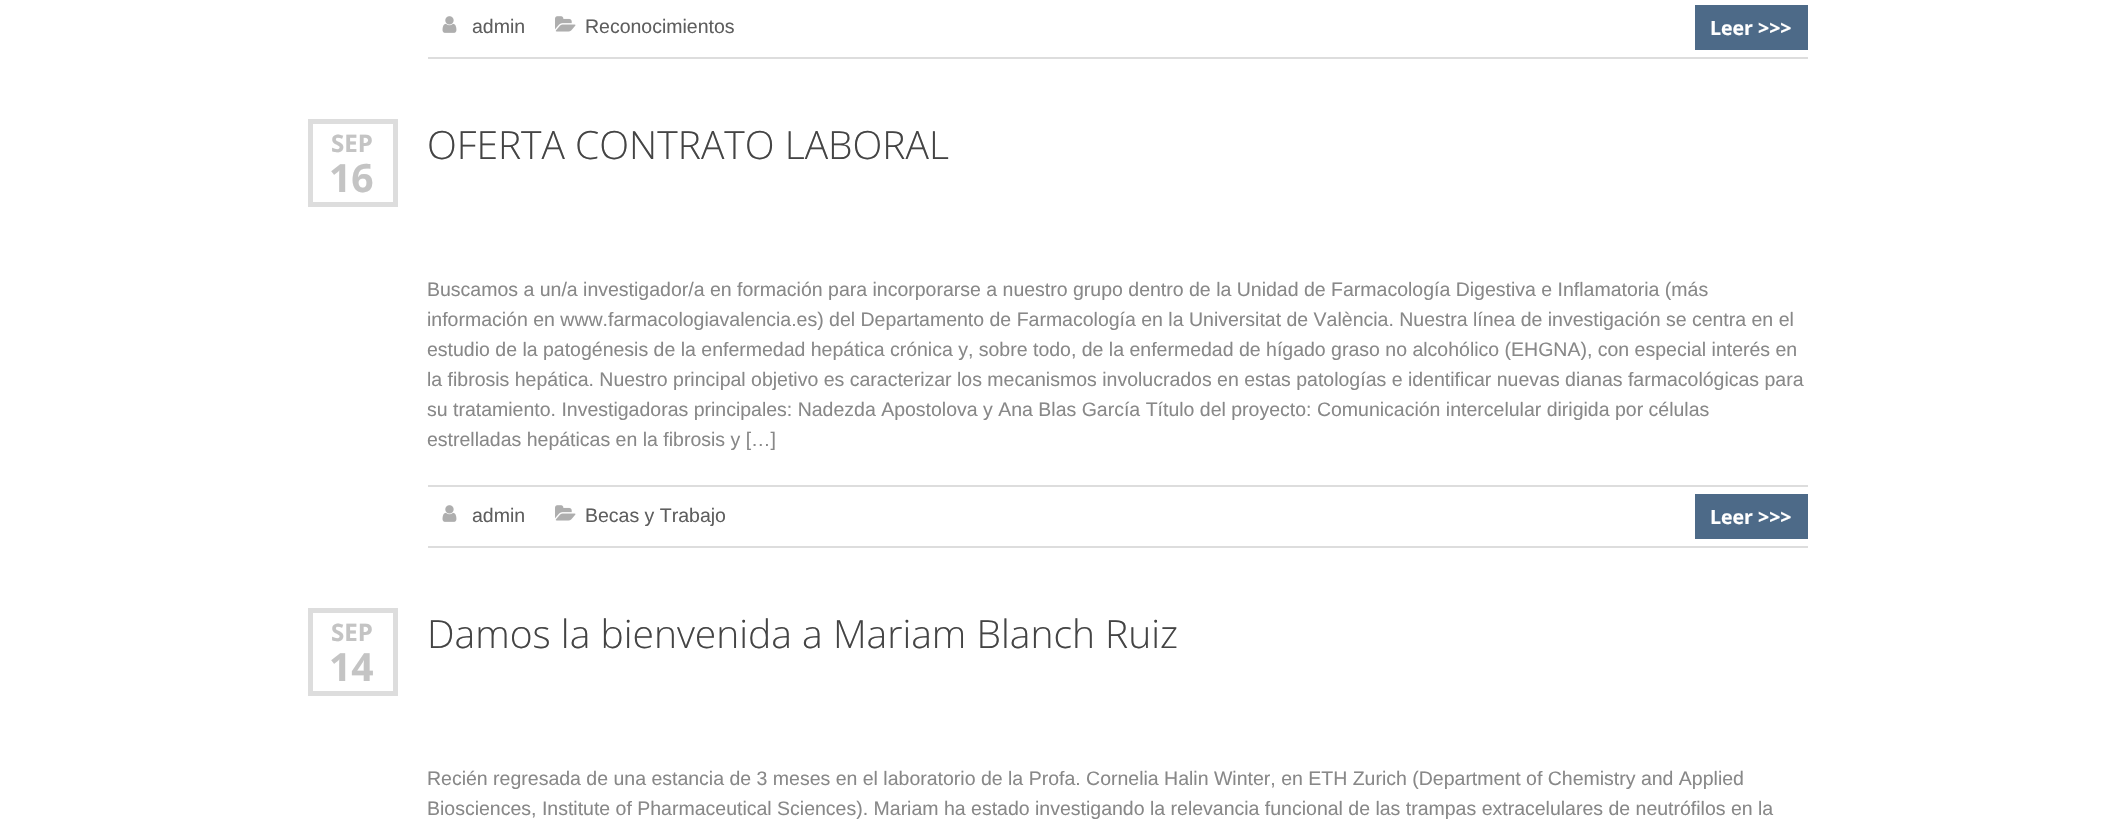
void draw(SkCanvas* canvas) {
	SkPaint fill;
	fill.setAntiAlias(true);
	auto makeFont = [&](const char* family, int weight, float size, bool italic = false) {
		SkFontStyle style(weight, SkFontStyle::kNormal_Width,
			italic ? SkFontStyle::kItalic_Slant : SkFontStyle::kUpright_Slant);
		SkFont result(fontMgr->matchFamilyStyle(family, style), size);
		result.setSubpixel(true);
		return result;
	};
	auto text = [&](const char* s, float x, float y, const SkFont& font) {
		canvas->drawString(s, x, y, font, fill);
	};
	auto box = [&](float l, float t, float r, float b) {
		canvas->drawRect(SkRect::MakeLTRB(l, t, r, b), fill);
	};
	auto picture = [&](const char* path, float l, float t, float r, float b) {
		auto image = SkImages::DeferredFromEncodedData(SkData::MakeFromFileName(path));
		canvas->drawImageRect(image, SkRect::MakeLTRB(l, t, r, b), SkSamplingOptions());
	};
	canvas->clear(0xFFFFFFFF);
	fill.setColor(0xFFDDDDDD);
	box(428, 57, 1808, 59);
	picture("image0.png", 442, 16, 457, 33);
	picture("image1.png", 555, 16, 576, 32);
	fill.setColor(0xFF4D6A88);
	box(1695, 5, 1808, 50);
	fill.setStyle(SkPaint::kStroke_Style);
	fill.setStrokeWidth(5);
	fill.setColor(0xFFDDDDDD);
	canvas->drawRect(SkRect::MakeLTRB(310.5f, 121.5f, 395.5f, 204.5f), fill);
	fill.setStyle(SkPaint::kFill_Style);
	box(428, 485, 1808, 487);
	box(428, 546, 1808, 548);
	picture("image0.png", 442, 505, 457, 522);
	picture("image1.png", 555, 505, 576, 521);
	fill.setColor(0xFF4D6A88);
	box(1695, 494, 1808, 539);
	fill.setStyle(SkPaint::kStroke_Style);
	fill.setColor(0xFFDDDDDD);
	canvas->drawRect(SkRect::MakeLTRB(310.5f, 610.5f, 395.5f, 693.5f), fill);
	auto font1 = makeFont("Liberation Sans", 400, 19.5f);
	fill.setStyle(SkPaint::kFill_Style);
	fill.setColor(0xFF5E5E5E);
	text("admin", 472, 33, font1);
	text("Reconocimientos", 585, 33, font1);
	auto font2 = makeFont("Open Sans", 700, 19.5f);
	fill.setColor(0xFFFFFFFF);
	text("Leer >>>", 1710, 35, font2);
	auto font3 = makeFont("Open Sans", 700, 24);
	fill.setColor(0xFFC4C4C4);
	text("SEP", 331, 152, font3);
	auto font4 = makeFont("Open Sans", 700, 39);
	text("16", 329, 192, font4);
	auto font5 = makeFont("Open Sans", 300, 39);
	fill.setColor(0xFF444444);
	text("OFERTA CONTRATO LABORAL", 427, 159, font5);
	fill.setColor(0xFF888888);
	text("Buscamos a un/a investigador/a en formación para incorporarse a nuestro grupo dentro de la Unidad de Farmacología Digestiva e Inflamatoria (más", 427, 296, font1);
	text("información en www.farmacologiavalencia.es) del Departamento de Farmacología en la Universitat de València. Nuestra línea de investigación se centra en el", 427, 326, font1);
	text("estudio de la patogénesis de la enfermedad hepática crónica y, sobre todo, de la enfermedad de hígado graso no alcohólico (EHGNA), con especial interés en", 427, 356, font1);
	text("la fibrosis hepática. Nuestro principal objetivo es caracterizar los mecanismos involucrados en estas patologías e identificar nuevas dianas farmacológicas para", 427, 386, font1);
	text("su tratamiento. Investigadoras principales: Nadezda Apostolova y Ana Blas García Título del proyecto: Comunicación intercelular dirigida por células", 427, 416, font1);
	text("estrelladas hepáticas en la fibrosis y […]", 427, 446, font1);
	fill.setColor(0xFF5E5E5E);
	text("admin", 472, 522, font1);
	text("Becas y Trabajo", 585, 522, font1);
	fill.setColor(0xFFFFFFFF);
	text("Leer >>>", 1710, 524, font2);
	fill.setColor(0xFFC4C4C4);
	text("SEP", 331, 641, font3);
	text("14", 329, 681, font4);
	fill.setColor(0xFF444444);
	text("Damos la bienvenida a Mariam Blanch Ruiz", 427, 648, font5);
	fill.setColor(0xFF888888);
	text("Recién regresada de una estancia de 3 meses en el laboratorio de la Profa. Cornelia Halin Winter, en ETH Zurich (Department of Chemistry and Applied", 427, 785, font1);
	text("Biosciences, Institute of Pharmaceutical Sciences). Mariam ha estado investigando la relevancia funcional de las trampas extracelulares de neutrófilos en la", 427, 815, font1);
}
